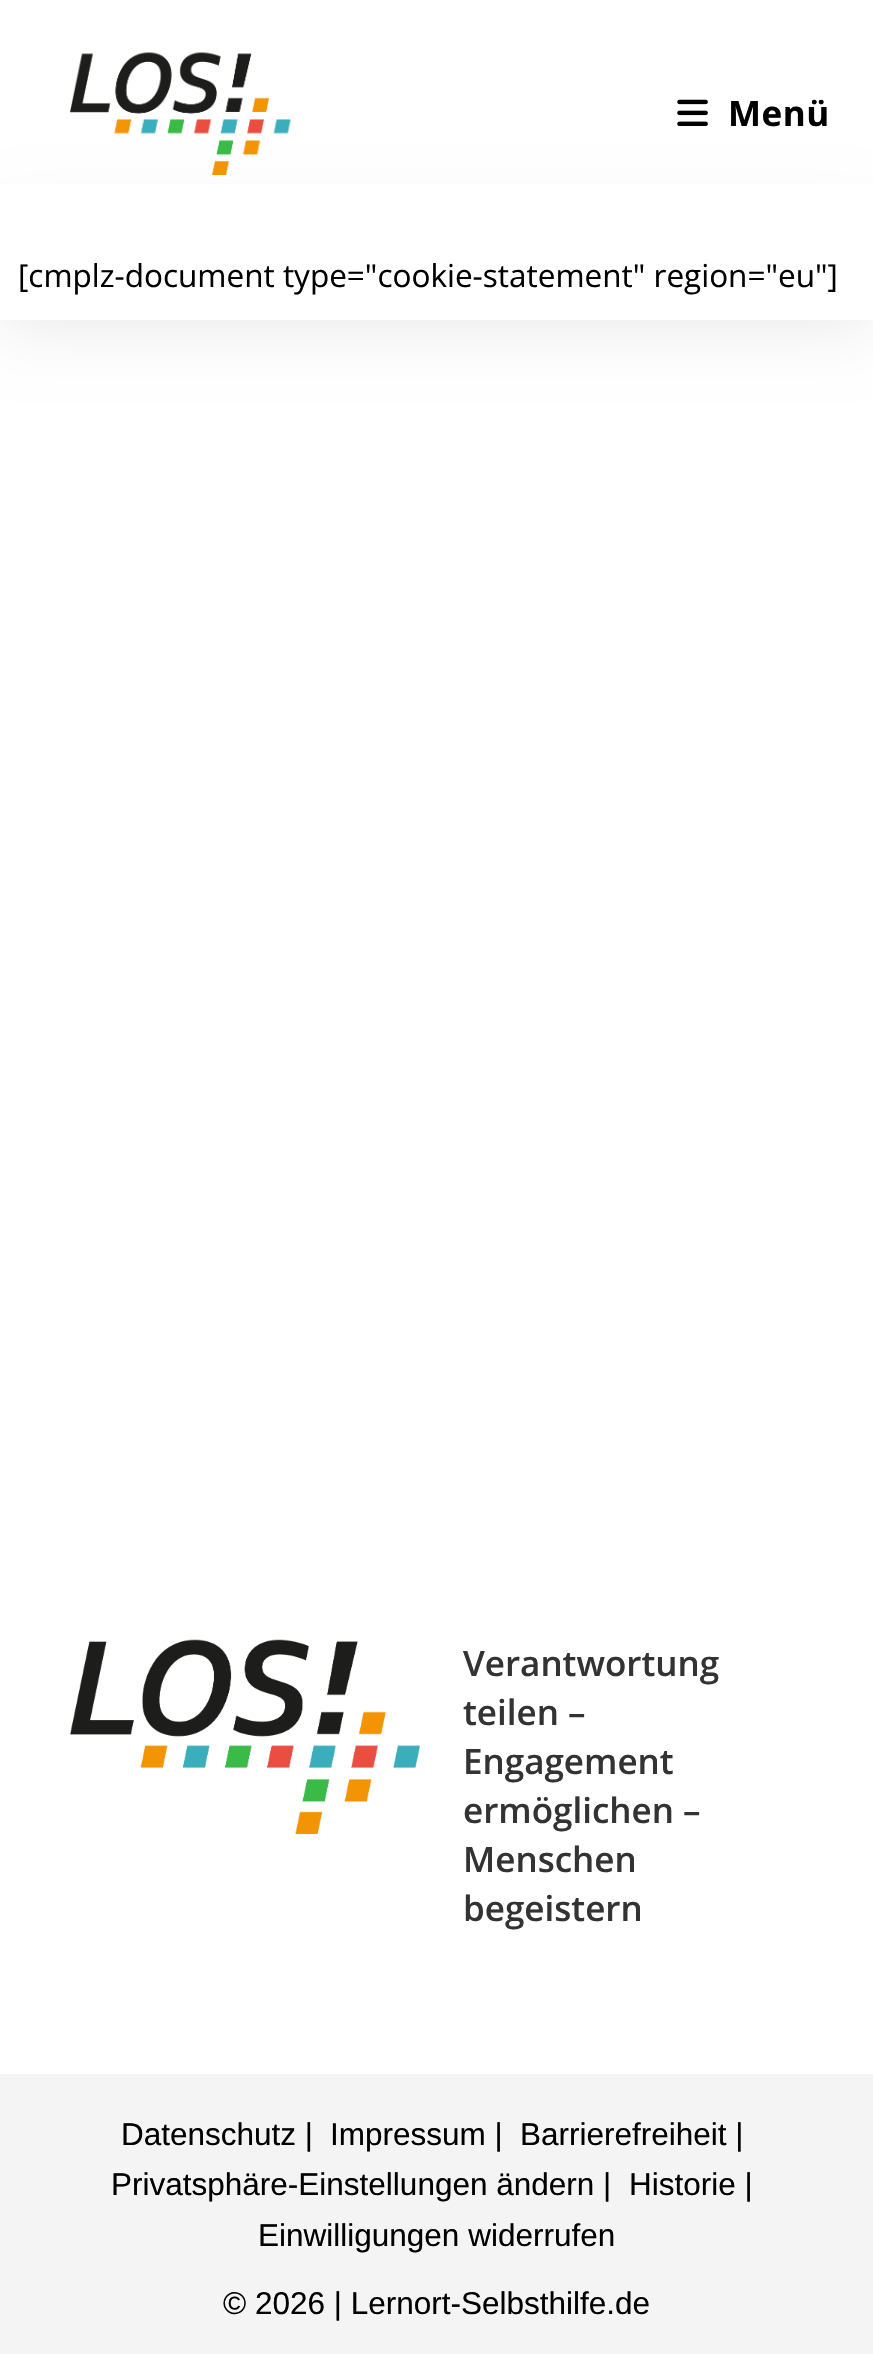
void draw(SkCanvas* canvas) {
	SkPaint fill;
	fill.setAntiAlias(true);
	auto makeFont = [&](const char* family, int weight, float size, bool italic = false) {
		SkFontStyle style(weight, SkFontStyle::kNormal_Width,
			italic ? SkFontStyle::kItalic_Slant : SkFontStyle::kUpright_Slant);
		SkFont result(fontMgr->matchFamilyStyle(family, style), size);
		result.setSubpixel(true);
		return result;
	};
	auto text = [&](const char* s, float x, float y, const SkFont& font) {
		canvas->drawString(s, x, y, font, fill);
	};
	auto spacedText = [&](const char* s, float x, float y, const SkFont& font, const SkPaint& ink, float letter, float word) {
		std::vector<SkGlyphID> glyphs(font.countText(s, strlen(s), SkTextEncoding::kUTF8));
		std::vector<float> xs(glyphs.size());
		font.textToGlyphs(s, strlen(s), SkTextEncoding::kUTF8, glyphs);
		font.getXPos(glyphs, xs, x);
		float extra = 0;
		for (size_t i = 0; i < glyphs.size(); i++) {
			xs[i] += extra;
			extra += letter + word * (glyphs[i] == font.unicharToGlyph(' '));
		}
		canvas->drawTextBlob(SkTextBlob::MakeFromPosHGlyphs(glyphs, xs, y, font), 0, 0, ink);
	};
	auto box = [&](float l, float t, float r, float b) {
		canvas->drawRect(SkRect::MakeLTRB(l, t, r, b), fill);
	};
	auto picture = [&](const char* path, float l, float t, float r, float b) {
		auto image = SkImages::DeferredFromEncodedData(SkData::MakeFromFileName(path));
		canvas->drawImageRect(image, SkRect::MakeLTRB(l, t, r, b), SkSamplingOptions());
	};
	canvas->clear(0xFFFFFFFF);
	fill.setColor(0x1A000000);
	fill.setMaskFilter(SkMaskFilter::MakeBlur(kNormal_SkBlurStyle, 35));
	canvas->drawRect(SkRect::MakeLTRB(0, 229, 873, 320), fill);
	fill.setMaskFilter(nullptr);
	picture("image0.png", 70, 52, 291, 175);
	picture("image1.png", 677, 99, 708, 126);
	fill.setColor(0xFFFFFFFF);
	box(0, 184, 873, 320);
	picture("image2.png", 70, 1639, 420, 1834);
	fill.setColor(0xFFF4F4F4);
	box(0, 2074, 873, 2354);
	auto font1 = makeFont("Open Sans", 700, 35);
	fill.setColor(0xFF000000);
	spacedText("Menü", 728, 126, font1, fill, 0.5f, 0);
	auto font2 = makeFont("Open Sans", 400, 31.5f);
	text("[cmplz-document type=\"cookie-statement\" region=\"eu\"]", 18, 287, font2);
	auto font3 = makeFont("Open Sans", 600, 35);
	fill.setColor(0xFF333333);
	text("Verantwortung", 463, 1676, font3);
	text("teilen –", 463, 1725, font3);
	text("Engagement", 463, 1774, font3);
	text("ermöglichen –", 463, 1823, font3);
	text("Menschen", 463, 1872, font3);
	text("begeistern", 463, 1921, font3);
	auto font4 = makeFont("Liberation Sans", 400, 31.5f);
	fill.setColor(0xFF000000);
	text("Datenschutz |", 121, 2145, font4);
	text("Impressum |", 330, 2145, font4);
	text("Barrierefreiheit |", 520, 2145, font4);
	text("Privatsphäre-Einstellungen ändern |", 111, 2195, font4);
	text("Historie |", 629, 2195, font4);
	text("Einwilligungen widerrufen", 258, 2246, font4);
	text("© 2026 | Lernort-Selbsthilfe.de", 223, 2314, font4);
}
